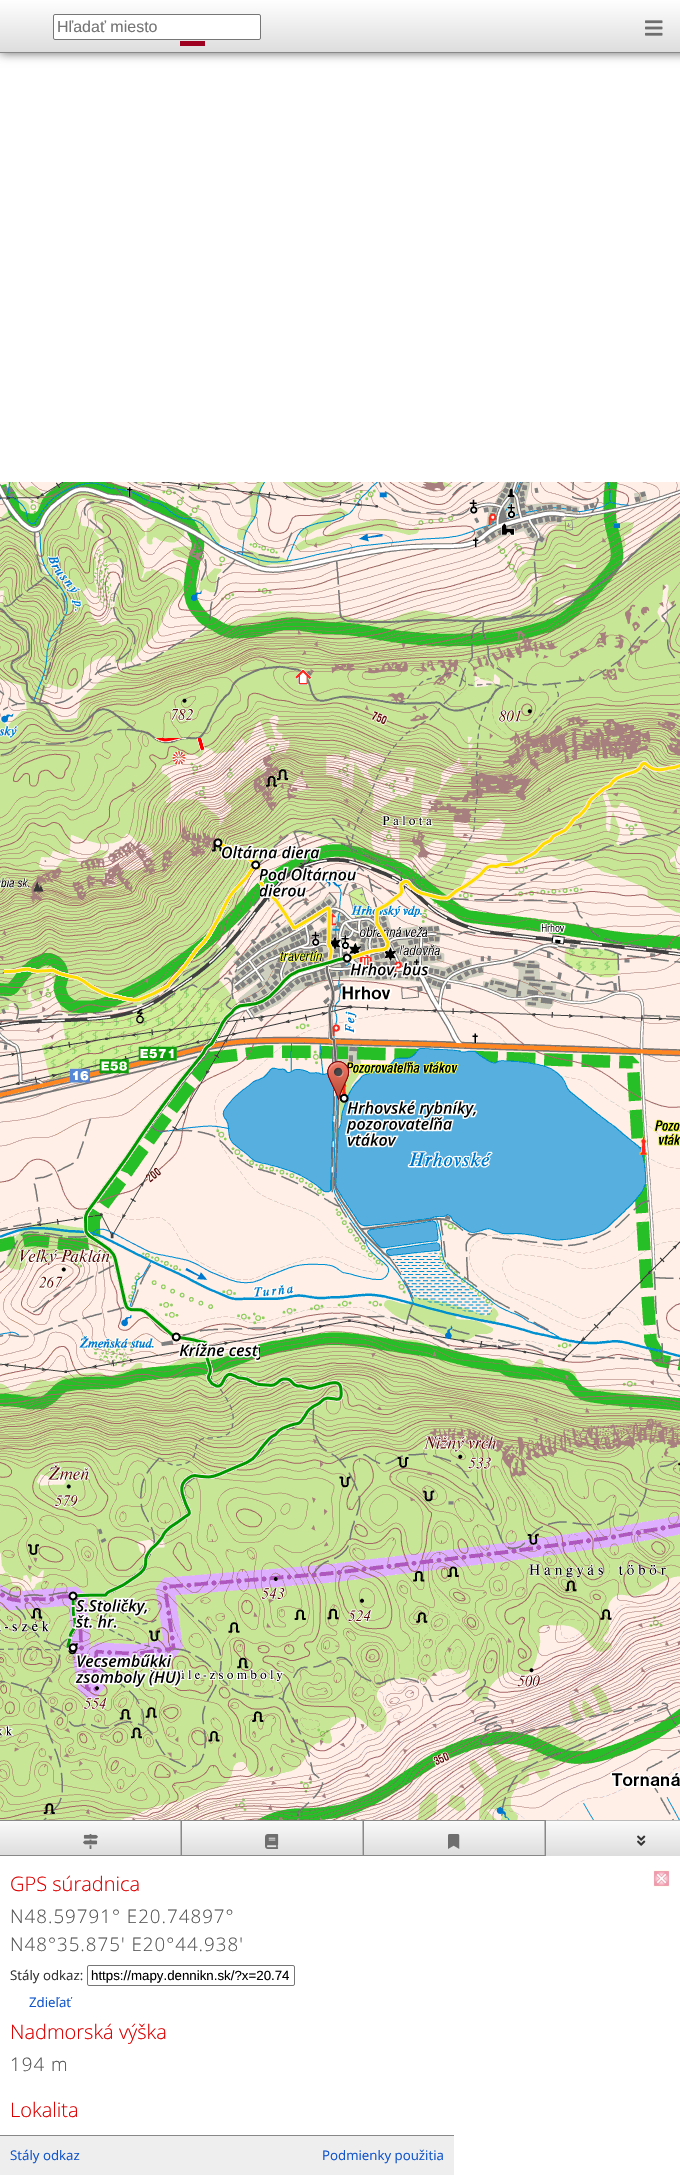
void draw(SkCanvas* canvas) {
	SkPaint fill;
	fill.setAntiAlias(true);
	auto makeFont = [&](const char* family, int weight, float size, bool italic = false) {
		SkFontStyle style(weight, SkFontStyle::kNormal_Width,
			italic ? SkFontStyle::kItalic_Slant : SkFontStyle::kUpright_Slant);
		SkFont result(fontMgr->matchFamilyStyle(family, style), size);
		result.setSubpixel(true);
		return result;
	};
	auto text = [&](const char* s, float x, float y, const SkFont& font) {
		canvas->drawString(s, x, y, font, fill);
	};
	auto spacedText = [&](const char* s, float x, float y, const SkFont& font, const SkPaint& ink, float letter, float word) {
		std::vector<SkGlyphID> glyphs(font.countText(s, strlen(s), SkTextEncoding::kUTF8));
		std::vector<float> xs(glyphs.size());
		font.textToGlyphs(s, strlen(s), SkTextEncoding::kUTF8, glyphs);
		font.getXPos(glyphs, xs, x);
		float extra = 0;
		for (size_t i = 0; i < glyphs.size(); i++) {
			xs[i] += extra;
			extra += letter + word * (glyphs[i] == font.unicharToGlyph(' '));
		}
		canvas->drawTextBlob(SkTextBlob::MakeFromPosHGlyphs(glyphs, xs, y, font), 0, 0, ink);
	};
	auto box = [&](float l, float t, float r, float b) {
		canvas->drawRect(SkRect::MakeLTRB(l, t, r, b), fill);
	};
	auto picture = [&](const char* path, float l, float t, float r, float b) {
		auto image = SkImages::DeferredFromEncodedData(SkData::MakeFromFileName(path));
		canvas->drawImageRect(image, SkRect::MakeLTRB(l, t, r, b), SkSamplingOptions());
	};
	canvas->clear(0xFFFFFFFF);
	fill.setColor(0xFF666666);
	fill.setMaskFilter(SkMaskFilter::MakeBlur(kNormal_SkBlurStyle, 5));
	canvas->drawRect(SkRect::MakeLTRB(0, -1, 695, 53), fill);
	fill.setMaskFilter(nullptr);
	{
		const SkColor colors[] = {0xFFFFFFFF, 0xFFDDDDDD};
		const float stops[] = {0, 1};
		const SkPoint ends[] = {{0, -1}, {0, 52}};
		fill.setShader(SkGradientShader::MakeLinear(ends, colors, stops, 2, SkTileMode::kClamp));
		fill.setAlpha(255);
	}
	box(0, 0, 680, 52);
	fill.setShader(nullptr);
	fill.setColor(0xFF888888);
	box(0, 52, 680, 53);
	fill.setColor(0xFFFFFFFF);
	canvas->drawRoundRect(SkRect::MakeLTRB(53.5f, 14.5f, 260.5f, 39.5f), 1.5f, 1.5f, fill);
	fill.setStyle(SkPaint::kStroke_Style);
	fill.setStrokeWidth(1);
	fill.setColor(0xFF767676);
	canvas->drawRoundRect(SkRect::MakeLTRB(53.5f, 14.5f, 260.5f, 39.5f), 1.5f, 1.5f, fill);
	fill.setStyle(SkPaint::kFill_Style);
	fill.setColor(0xFF9E001F);
	box(180, 41, 205, 46);
	picture("image0.png", 645, 20, 663, 36);
	picture("image1.png", 0, 482, 4, 738);
	picture("image2.png", 4, 482, 260, 738);
	picture("image3.png", 260, 482, 516, 738);
	picture("image4.png", 516, 482, 680, 738);
	picture("image5.png", 0, 738, 4, 994);
	picture("image6.png", 4, 738, 260, 994);
	picture("image7.png", 260, 738, 516, 994);
	picture("image8.png", 516, 738, 680, 994);
	picture("image9.png", 0, 994, 4, 1250);
	picture("image10.png", 4, 994, 260, 1250);
	picture("image11.png", 260, 994, 516, 1250);
	picture("image12.png", 516, 994, 680, 1250);
	picture("image13.png", 0, 1250, 4, 1506);
	picture("image14.png", 4, 1250, 260, 1506);
	picture("image15.png", 260, 1250, 516, 1506);
	picture("image16.png", 516, 1250, 680, 1506);
	picture("image17.png", 0, 1506, 4, 1762);
	picture("image18.png", 4, 1506, 260, 1762);
	picture("image19.png", 260, 1506, 516, 1762);
	picture("image20.png", 516, 1506, 680, 1762);
	picture("image21.png", 0, 1762, 4, 1820);
	picture("image22.png", 4, 1762, 260, 1820);
	picture("image23.png", 260, 1762, 516, 1820);
	picture("image24.png", 516, 1762, 680, 1820);
	picture("image25.png", 4, 738, 260, 994);
	picture("image26.png", 516, 761, 680, 865);
	picture("image27.png", 260, 844, 516, 994);
	picture("image28.png", 83, 994, 260, 1250);
	picture("image29.png", 260, 994, 478, 1148);
	picture("image30.png", 106, 1250, 260, 1506);
	picture("image31.png", 260, 1376, 344, 1455);
	picture("image32.png", 66, 1506, 192, 1689);
	picture("image33.png", 327, 1061, 349, 1100);
	{
		const SkColor colors[] = {0xFFFAFAFA, 0xFFDDDDDD};
		const float stops[] = {0, 1};
		const SkPoint ends[] = {{0, 1821}, {0, 1856}};
		fill.setShader(SkGradientShader::MakeLinear(ends, colors, stops, 2, SkTileMode::kClamp));
		fill.setAlpha(255);
	}
	box(546, 1821, 680, 1856);
	fill.setShader(nullptr);
	fill.setColor(0xFFBBBBBB);
	box(546, 1820, 680, 1821);
	{
		const SkColor colors[] = {0xFFFAFAFA, 0xFFDDDDDD};
		const float stops[] = {0, 1};
		const SkPoint ends[] = {{0, 1821}, {0, 1855}};
		fill.setShader(SkGradientShader::MakeLinear(ends, colors, stops, 2, SkTileMode::kClamp));
		fill.setAlpha(255);
	}
	box(0, 1821, 180, 1855);
	fill.setShader(nullptr);
	fill.setColor(0xFFBBBBBB);
	box(180, 1821, 181, 1855);
	fill.setStyle(SkPaint::kStroke_Style);
	fill.setColor(0xFF888888);
	canvas->drawRect(SkRect::MakeLTRB(-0.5f, 1820.5f, 181.5f, 1855.5f), fill);
	picture("image34.png", 83, 1834, 98, 1849);
	fill.setStyle(SkPaint::kFill_Style);
	{
		const SkColor colors[] = {0xFFFAFAFA, 0xFFDDDDDD};
		const float stops[] = {0, 1};
		const SkPoint ends[] = {{182, 1821}, {182, 1855}};
		fill.setShader(SkGradientShader::MakeLinear(ends, colors, stops, 2, SkTileMode::kClamp));
		fill.setAlpha(255);
	}
	box(182, 1821, 362, 1855);
	fill.setShader(nullptr);
	fill.setColor(0xFFBBBBBB);
	box(362, 1821, 363, 1855);
	fill.setStyle(SkPaint::kStroke_Style);
	fill.setColor(0xFF888888);
	canvas->drawRect(SkRect::MakeLTRB(181.5f, 1820.5f, 363.5f, 1855.5f), fill);
	picture("image35.png", 265, 1834, 279, 1849);
	fill.setStyle(SkPaint::kFill_Style);
	{
		const SkColor colors[] = {0xFFFAFAFA, 0xFFDDDDDD};
		const float stops[] = {0, 1};
		const SkPoint ends[] = {{364, 1821}, {364, 1855}};
		fill.setShader(SkGradientShader::MakeLinear(ends, colors, stops, 2, SkTileMode::kClamp));
		fill.setAlpha(255);
	}
	box(364, 1821, 544, 1855);
	fill.setShader(nullptr);
	fill.setColor(0xFFBBBBBB);
	box(544, 1821, 545, 1855);
	fill.setStyle(SkPaint::kStroke_Style);
	fill.setColor(0xFF888888);
	canvas->drawRect(SkRect::MakeLTRB(363.5f, 1820.5f, 545.5f, 1855.5f), fill);
	picture("image36.png", 448, 1834, 460, 1849);
	picture("image37.png", 637, 1835, 646, 1846);
	fill.setColor(0xFF767676);
	canvas->drawRoundRect(SkRect::MakeLTRB(87.5f, 1965.5f, 294.5f, 1985.5f), 1.5f, 1.5f, fill);
	picture("image38.png", 653, 1870, 670, 1887);
	fill.setStyle(SkPaint::kFill_Style);
	fill.setColor(0xFFEEEEEE);
	box(0, 2136, 454, 2175);
	fill.setColor(0xFF888888);
	box(0, 2135, 454, 2136);
	auto font1 = makeFont("Liberation Sans", 400, 16);
	fill.setColor(0xFF757575);
	text("Hľadať miesto", 57, 32, font1);
	auto font2 = makeFont("Open Sans", 300, 20);
	fill.setColor(0xFFDD0000);
	text("GPS súradnica", 10, 1891, font2);
	auto font3 = makeFont("Open Sans", 300, 18.75f);
	fill.setColor(0xFF555555);
	spacedText("N48.59791° E20.74897°", 10, 1923, font3, fill, 1, 0);
	spacedText("N48°35.875' E20°44.938'", 10, 1951, font3, fill, 1, 0);
	auto font4 = makeFont("Open Sans", 400, 13.3f);
	fill.setColor(0xFF333333);
	text("Stály odkaz:", 10, 1980, font4);
	auto font5 = makeFont("Liberation Sans", 400, 13.3f);
	fill.setColor(0xFF000000);
	text("https://mapy.dennikn.sk/?x=20.74", 91, 1980, font5);
	fill.setColor(0xFF1155CC);
	text("Zdieľať", 29, 2007, font4);
	fill.setColor(0xFFDD0000);
	text("Nadmorská výška", 10, 2039, font2);
	fill.setColor(0xFF555555);
	spacedText("194 m", 10, 2071, font3, fill, 1, 0);
	fill.setColor(0xFFDD0000);
	text("Lokalita", 10, 2117, font2);
	fill.setColor(0xFF1155CC);
	text("Stály odkaz", 10, 2160, font4);
	text("Podmienky použitia", 322, 2160, font4);
}
